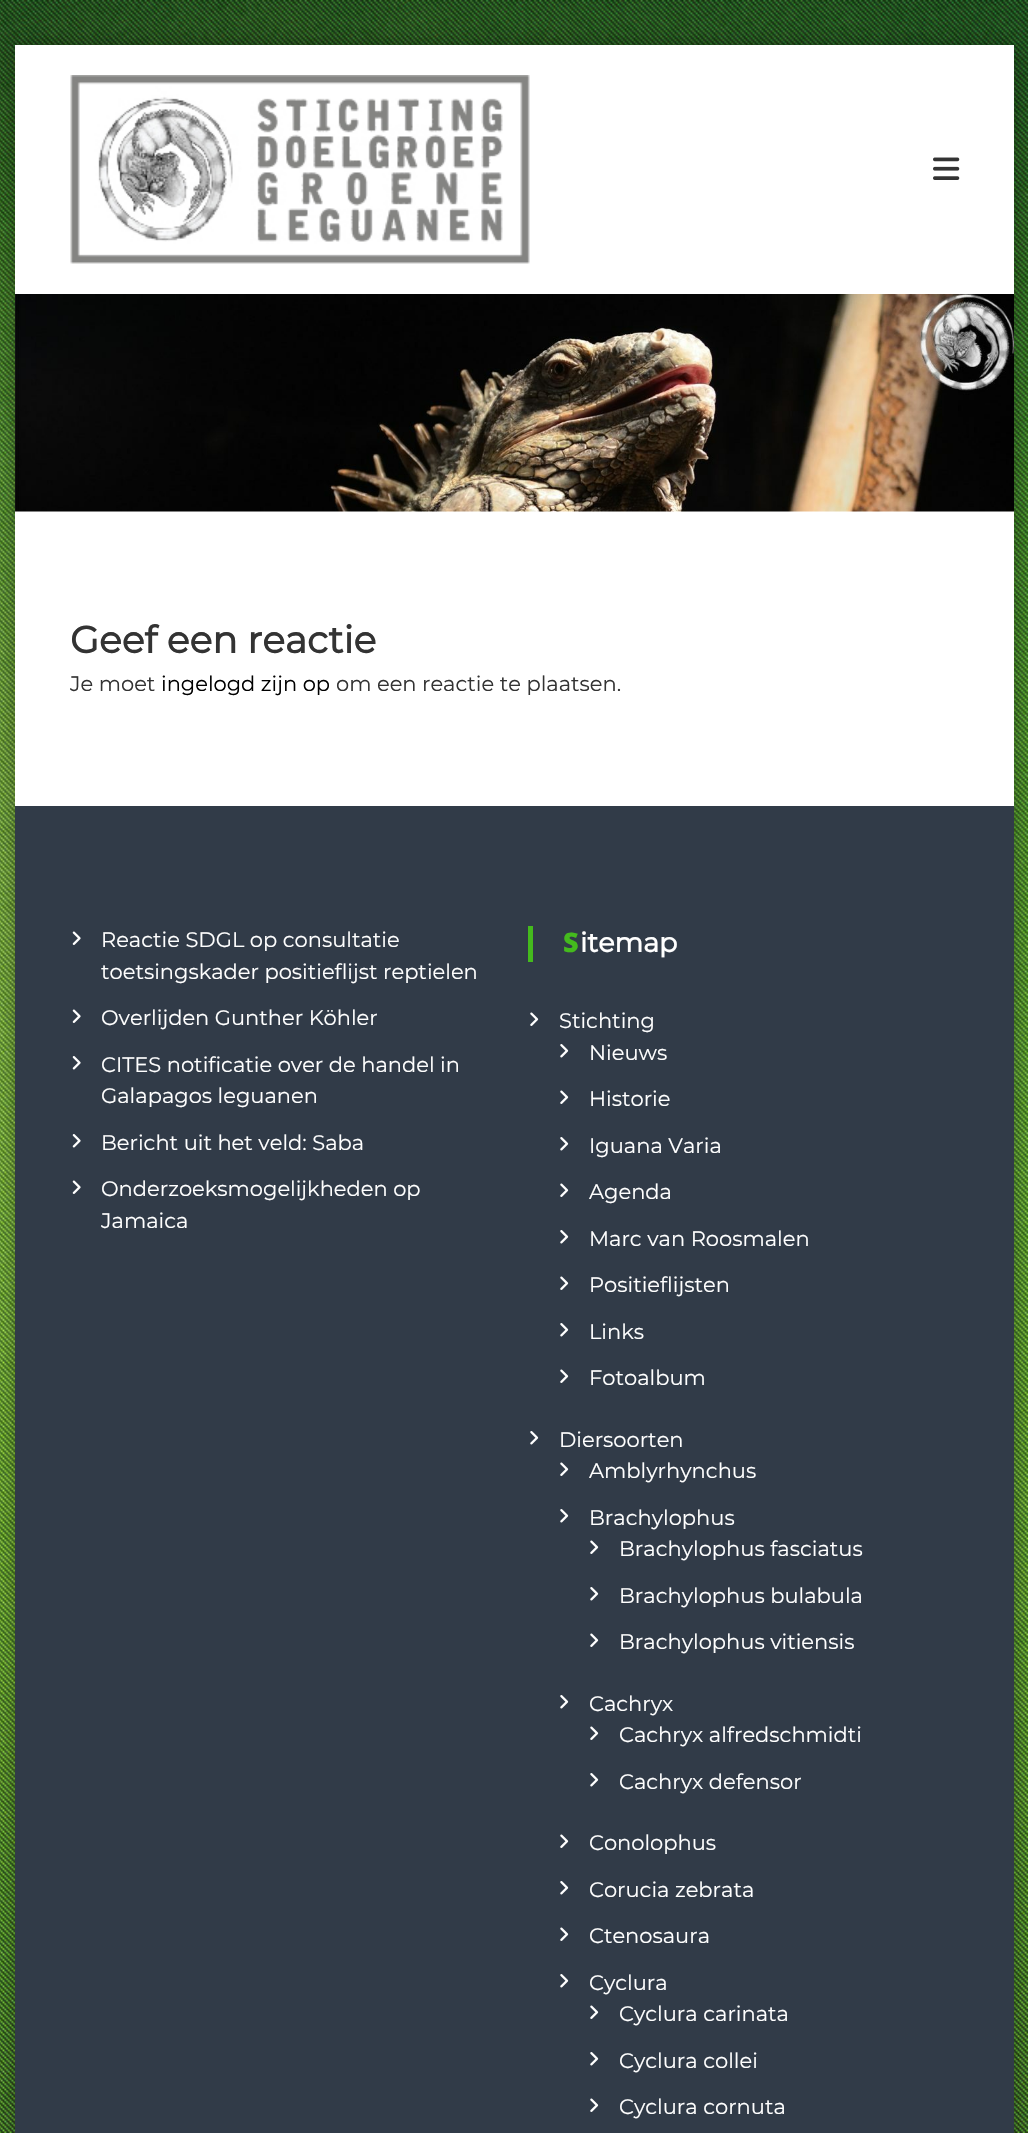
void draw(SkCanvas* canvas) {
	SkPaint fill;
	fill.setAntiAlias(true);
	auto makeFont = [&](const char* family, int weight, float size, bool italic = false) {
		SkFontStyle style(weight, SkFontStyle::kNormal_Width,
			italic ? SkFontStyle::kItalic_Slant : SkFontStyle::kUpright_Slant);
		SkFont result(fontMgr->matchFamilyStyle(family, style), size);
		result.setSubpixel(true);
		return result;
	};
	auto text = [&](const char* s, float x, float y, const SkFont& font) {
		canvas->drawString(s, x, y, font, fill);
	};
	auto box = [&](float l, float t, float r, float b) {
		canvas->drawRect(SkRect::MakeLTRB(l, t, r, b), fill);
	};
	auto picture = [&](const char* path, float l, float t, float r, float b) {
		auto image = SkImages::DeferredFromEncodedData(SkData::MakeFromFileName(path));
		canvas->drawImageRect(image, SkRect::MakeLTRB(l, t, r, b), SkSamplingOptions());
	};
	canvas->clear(0xFFFFFFFF);
	picture("image0.png", 0, 0, 1028, 2133);
	fill.setColor(0x4D000000);
	fill.setMaskFilter(SkMaskFilter::MakeBlur(kNormal_SkBlurStyle, 9));
	canvas->drawRect(SkRect::MakeLTRB(14, 44, 1016, 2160), fill);
	fill.setMaskFilter(nullptr);
	fill.setColor(0xFFFFFFFF);
	box(15, 45, 1014, 806);
	picture("image1.png", 70, 75, 530, 264);
	picture("image2.png", 933, 157, 960, 180);
	picture("image3.png", 15, 294, 1014, 512);
	fill.setColor(0xFF313B48);
	box(15, 806, 1014, 2133);
	picture("image4.png", 72, 931, 81, 945);
	picture("image4.png", 72, 1009, 81, 1023);
	picture("image5.png", 72, 1056, 81, 1070);
	picture("image5.png", 72, 1134, 81, 1148);
	picture("image4.png", 72, 1180, 81, 1194);
	fill.setColor(0xFF44BA1D);
	box(528, 926, 533, 962);
	picture("image6.png", 530, 1012, 539, 1026);
	picture("image7.png", 560, 1044, 569, 1058);
	picture("image6.png", 560, 1090, 569, 1104);
	picture("image7.png", 560, 1137, 569, 1151);
	picture("image6.png", 560, 1183, 569, 1197);
	picture("image7.png", 560, 1230, 569, 1244);
	picture("image6.png", 560, 1276, 569, 1290);
	picture("image7.png", 560, 1323, 569, 1337);
	picture("image6.png", 560, 1369, 569, 1383);
	picture("image7.png", 530, 1431, 539, 1445);
	picture("image6.png", 560, 1462, 569, 1476);
	picture("image7.png", 560, 1509, 569, 1523);
	picture("image6.png", 590, 1540, 599, 1554);
	picture("image7.png", 590, 1587, 599, 1601);
	picture("image6.png", 590, 1633, 599, 1647);
	picture("image7.png", 560, 1695, 569, 1709);
	picture("image6.png", 590, 1726, 599, 1740);
	picture("image7.png", 590, 1773, 599, 1787);
	picture("image6.png", 560, 1834, 569, 1848);
	picture("image7.png", 560, 1881, 569, 1895);
	picture("image6.png", 560, 1927, 569, 1941);
	picture("image7.png", 560, 1974, 569, 1988);
	picture("image6.png", 590, 2005, 599, 2019);
	picture("image7.png", 590, 2052, 599, 2066);
	picture("image6.png", 590, 2098, 599, 2112);
	auto font1 = makeFont("Montserrat", 700, 37.5f);
	fill.setColor(0xFF333333);
	text("Geef een reactie", 70, 653, font1);
	auto font2 = makeFont("Montserrat", 400, 21);
	text("Je moet", 70, 691, font2);
	fill.setColor(0xFF000000);
	text("ingelogd zijn op", 161, 691, font2);
	fill.setColor(0xFF333333);
	text("om een reactie te plaatsen.", 336, 691, font2);
	fill.setColor(0xFFFFFFFF);
	text("Reactie SDGL op consultatie", 101, 947, font2);
	text("toetsingskader positieflijst reptielen", 101, 979, font2);
	text("Overlijden Gunther Köhler", 101, 1025, font2);
	text("CITES notificatie over de handel in", 101, 1072, font2);
	text("Galapagos leguanen", 101, 1103, font2);
	text("Bericht uit het veld: Saba", 101, 1150, font2);
	text("Onderzoeksmogelijkheden op", 101, 1196, font2);
	text("Jamaica", 101, 1228, font2);
	auto font3 = makeFont("Noto Sans", 900, 27);
	fill.setColor(0xFF44BA1D);
	text("S", 563, 952, font3);
	auto font4 = makeFont("Montserrat", 700, 27);
	fill.setColor(0xFFFFFFFF);
	text("itemap", 580, 952, font4);
	text("Stichting", 559, 1028, font2);
	text("Nieuws", 589, 1060, font2);
	text("Historie", 589, 1106, font2);
	text("Iguana Varia", 589, 1153, font2);
	text("Agenda", 589, 1199, font2);
	text("Marc van Roosmalen", 589, 1246, font2);
	text("Positieflijsten", 589, 1292, font2);
	text("Links", 589, 1339, font2);
	text("Fotoalbum", 589, 1385, font2);
	text("Diersoorten", 559, 1447, font2);
	text("Amblyrhynchus", 589, 1478, font2);
	text("Brachylophus", 589, 1525, font2);
	text("Brachylophus fasciatus", 619, 1556, font2);
	text("Brachylophus bulabula", 619, 1603, font2);
	text("Brachylophus vitiensis", 619, 1649, font2);
	text("Cachryx", 589, 1711, font2);
	text("Cachryx alfredschmidti", 619, 1742, font2);
	text("Cachryx defensor", 619, 1789, font2);
	text("Conolophus", 589, 1850, font2);
	text("Corucia zebrata", 589, 1897, font2);
	text("Ctenosaura", 589, 1943, font2);
	text("Cyclura", 589, 1990, font2);
	text("Cyclura carinata", 619, 2021, font2);
	text("Cyclura collei", 619, 2068, font2);
	text("Cyclura cornuta", 619, 2114, font2);
}
